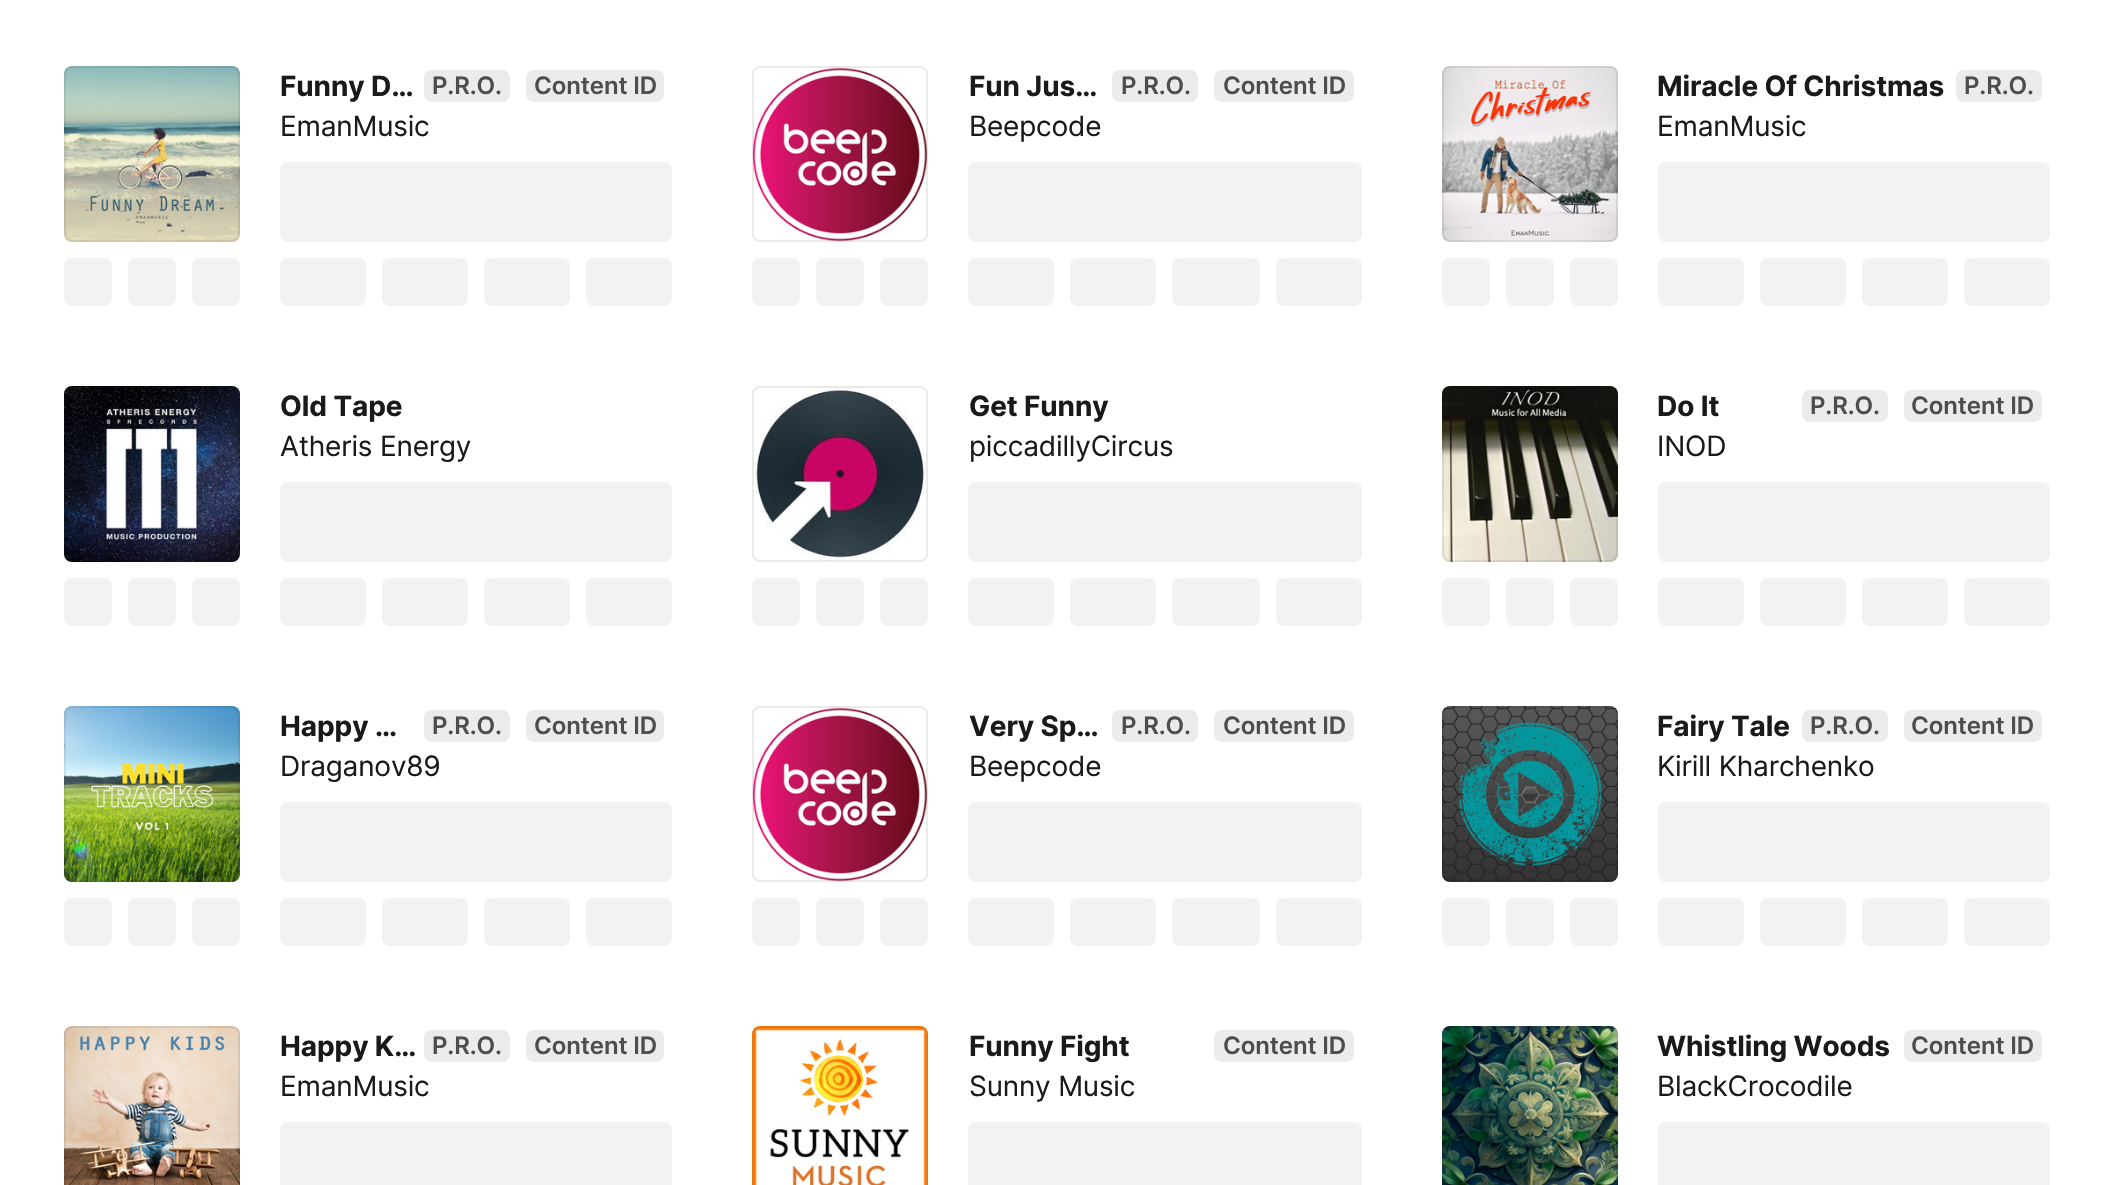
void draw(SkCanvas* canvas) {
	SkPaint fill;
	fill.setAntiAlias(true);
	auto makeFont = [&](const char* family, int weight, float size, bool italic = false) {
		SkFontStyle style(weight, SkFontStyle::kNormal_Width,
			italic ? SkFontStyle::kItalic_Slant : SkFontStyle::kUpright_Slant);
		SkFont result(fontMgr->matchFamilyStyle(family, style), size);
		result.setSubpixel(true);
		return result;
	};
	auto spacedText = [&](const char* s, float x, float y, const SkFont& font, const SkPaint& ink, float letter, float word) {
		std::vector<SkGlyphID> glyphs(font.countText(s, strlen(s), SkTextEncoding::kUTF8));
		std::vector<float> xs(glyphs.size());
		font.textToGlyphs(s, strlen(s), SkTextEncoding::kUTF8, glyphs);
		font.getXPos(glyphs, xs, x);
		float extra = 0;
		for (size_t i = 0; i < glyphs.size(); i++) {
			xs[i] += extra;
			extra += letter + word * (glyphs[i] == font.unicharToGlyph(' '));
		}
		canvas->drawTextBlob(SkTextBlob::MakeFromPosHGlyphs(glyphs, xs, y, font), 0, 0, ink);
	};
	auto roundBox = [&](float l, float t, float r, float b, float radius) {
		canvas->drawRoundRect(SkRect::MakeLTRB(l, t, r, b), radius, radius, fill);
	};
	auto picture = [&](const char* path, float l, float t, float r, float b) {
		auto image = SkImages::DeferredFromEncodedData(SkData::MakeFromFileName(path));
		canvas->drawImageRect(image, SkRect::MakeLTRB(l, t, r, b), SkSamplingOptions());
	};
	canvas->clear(0xFFFFFFFF);
	picture("image0.png", 64, 66, 240, 242);
	fill.setStyle(SkPaint::kStroke_Style);
	fill.setStrokeWidth(2);
	fill.setColor(0x14000000);
	canvas->drawRoundRect(SkRect::MakeLTRB(65, 67, 239, 241), 7, 7, fill);
	fill.setStyle(SkPaint::kFill_Style);
	fill.setColor(0xFFF2F2F2);
	roundBox(64, 258, 112, 306, 8);
	roundBox(128, 258, 176, 306, 8);
	roundBox(192, 258, 240, 306, 8);
	fill.setColor(0xFFEBEBEB);
	roundBox(424, 70, 510, 102, 8);
	roundBox(526, 70, 664, 102, 8);
	fill.setColor(0xFFF2F2F2);
	roundBox(280, 162, 672, 242, 8);
	roundBox(280, 258, 366, 306, 8);
	roundBox(382, 258, 468, 306, 8);
	roundBox(484, 258, 570, 306, 8);
	roundBox(586, 258, 672, 306, 8);
	picture("image1.png", 752, 66, 928, 242);
	fill.setStyle(SkPaint::kStroke_Style);
	fill.setColor(0x14000000);
	canvas->drawRoundRect(SkRect::MakeLTRB(753, 67, 927, 241), 7, 7, fill);
	fill.setStyle(SkPaint::kFill_Style);
	fill.setColor(0xFFF2F2F2);
	roundBox(752, 258, 800, 306, 8);
	roundBox(816, 258, 864, 306, 8);
	roundBox(880, 258, 928, 306, 8);
	fill.setColor(0xFFEBEBEB);
	roundBox(1112, 70, 1198, 102, 8);
	roundBox(1214, 70, 1354, 102, 8);
	fill.setColor(0xFFF2F2F2);
	roundBox(968, 162, 1362, 242, 8);
	roundBox(968, 258, 1054, 306, 8);
	roundBox(1070, 258, 1156, 306, 8);
	roundBox(1172, 258, 1260, 306, 8);
	roundBox(1276, 258, 1362, 306, 8);
	picture("image2.png", 1442, 66, 1618, 242);
	fill.setStyle(SkPaint::kStroke_Style);
	fill.setColor(0x14000000);
	canvas->drawRoundRect(SkRect::MakeLTRB(1443, 67, 1617, 241), 7, 7, fill);
	fill.setStyle(SkPaint::kFill_Style);
	fill.setColor(0xFFF2F2F2);
	roundBox(1442, 258, 1490, 306, 8);
	roundBox(1506, 258, 1554, 306, 8);
	roundBox(1570, 258, 1618, 306, 8);
	fill.setColor(0xFFEBEBEB);
	roundBox(1956, 70, 2042, 102, 8);
	fill.setColor(0xFFF2F2F2);
	roundBox(1658, 162, 2050, 242, 8);
	roundBox(1658, 258, 1744, 306, 8);
	roundBox(1760, 258, 1846, 306, 8);
	roundBox(1862, 258, 1948, 306, 8);
	roundBox(1964, 258, 2050, 306, 8);
	roundBox(64, 386, 240, 562, 8);
	picture("image3.png", 64, 386, 240, 562);
	fill.setStyle(SkPaint::kStroke_Style);
	fill.setColor(0x14000000);
	canvas->drawRoundRect(SkRect::MakeLTRB(65, 387, 239, 561), 7, 7, fill);
	fill.setStyle(SkPaint::kFill_Style);
	fill.setColor(0xFFF2F2F2);
	roundBox(64, 578, 112, 626, 8);
	roundBox(128, 578, 176, 626, 8);
	roundBox(192, 578, 240, 626, 8);
	roundBox(280, 482, 672, 562, 8);
	roundBox(280, 578, 366, 626, 8);
	roundBox(382, 578, 468, 626, 8);
	roundBox(484, 578, 570, 626, 8);
	roundBox(586, 578, 672, 626, 8);
	roundBox(752, 386, 928, 562, 8);
	picture("image4.png", 752, 386, 928, 562);
	fill.setStyle(SkPaint::kStroke_Style);
	fill.setColor(0x14000000);
	canvas->drawRoundRect(SkRect::MakeLTRB(753, 387, 927, 561), 7, 7, fill);
	fill.setStyle(SkPaint::kFill_Style);
	fill.setColor(0xFFF2F2F2);
	roundBox(752, 578, 800, 626, 8);
	roundBox(816, 578, 864, 626, 8);
	roundBox(880, 578, 928, 626, 8);
	roundBox(968, 482, 1362, 562, 8);
	roundBox(968, 578, 1054, 626, 8);
	roundBox(1070, 578, 1156, 626, 8);
	roundBox(1172, 578, 1260, 626, 8);
	roundBox(1276, 578, 1362, 626, 8);
	roundBox(1442, 386, 1618, 562, 8);
	picture("image5.png", 1442, 386, 1618, 562);
	fill.setStyle(SkPaint::kStroke_Style);
	fill.setColor(0x14000000);
	canvas->drawRoundRect(SkRect::MakeLTRB(1443, 387, 1617, 561), 7, 7, fill);
	fill.setStyle(SkPaint::kFill_Style);
	fill.setColor(0xFFF2F2F2);
	roundBox(1442, 578, 1490, 626, 8);
	roundBox(1506, 578, 1554, 626, 8);
	roundBox(1570, 578, 1618, 626, 8);
	fill.setColor(0xFFEBEBEB);
	roundBox(1802, 390, 1888, 422, 8);
	roundBox(1904, 390, 2042, 422, 8);
	fill.setColor(0xFFF2F2F2);
	roundBox(1658, 482, 2050, 562, 8);
	roundBox(1658, 578, 1744, 626, 8);
	roundBox(1760, 578, 1846, 626, 8);
	roundBox(1862, 578, 1948, 626, 8);
	roundBox(1964, 578, 2050, 626, 8);
	roundBox(64, 706, 240, 882, 8);
	picture("image6.png", 64, 706, 240, 882);
	fill.setStyle(SkPaint::kStroke_Style);
	fill.setColor(0x14000000);
	canvas->drawRoundRect(SkRect::MakeLTRB(65, 707, 239, 881), 7, 7, fill);
	fill.setStyle(SkPaint::kFill_Style);
	fill.setColor(0xFFF2F2F2);
	roundBox(64, 898, 112, 946, 8);
	roundBox(128, 898, 176, 946, 8);
	roundBox(192, 898, 240, 946, 8);
	fill.setColor(0xFFEBEBEB);
	roundBox(424, 710, 510, 742, 8);
	roundBox(526, 710, 664, 742, 8);
	fill.setColor(0xFFF2F2F2);
	roundBox(280, 802, 672, 882, 8);
	roundBox(280, 898, 366, 946, 8);
	roundBox(382, 898, 468, 946, 8);
	roundBox(484, 898, 570, 946, 8);
	roundBox(586, 898, 672, 946, 8);
	roundBox(752, 706, 928, 882, 8);
	picture("image7.png", 752, 706, 928, 882);
	fill.setStyle(SkPaint::kStroke_Style);
	fill.setColor(0x14000000);
	canvas->drawRoundRect(SkRect::MakeLTRB(753, 707, 927, 881), 7, 7, fill);
	fill.setStyle(SkPaint::kFill_Style);
	fill.setColor(0xFFF2F2F2);
	roundBox(752, 898, 800, 946, 8);
	roundBox(816, 898, 864, 946, 8);
	roundBox(880, 898, 928, 946, 8);
	fill.setColor(0xFFEBEBEB);
	roundBox(1112, 710, 1198, 742, 8);
	roundBox(1214, 710, 1354, 742, 8);
	fill.setColor(0xFFF2F2F2);
	roundBox(968, 802, 1362, 882, 8);
	roundBox(968, 898, 1054, 946, 8);
	roundBox(1070, 898, 1156, 946, 8);
	roundBox(1172, 898, 1260, 946, 8);
	roundBox(1276, 898, 1362, 946, 8);
	roundBox(1442, 706, 1618, 882, 8);
	picture("image8.png", 1442, 706, 1618, 882);
	fill.setStyle(SkPaint::kStroke_Style);
	fill.setColor(0x14000000);
	canvas->drawRoundRect(SkRect::MakeLTRB(1443, 707, 1617, 881), 7, 7, fill);
	fill.setStyle(SkPaint::kFill_Style);
	fill.setColor(0xFFF2F2F2);
	roundBox(1442, 898, 1490, 946, 8);
	roundBox(1506, 898, 1554, 946, 8);
	roundBox(1570, 898, 1618, 946, 8);
	fill.setColor(0xFFEBEBEB);
	roundBox(1802, 710, 1888, 742, 8);
	roundBox(1904, 710, 2042, 742, 8);
	fill.setColor(0xFFF2F2F2);
	roundBox(1658, 802, 2050, 882, 8);
	roundBox(1658, 898, 1744, 946, 8);
	roundBox(1760, 898, 1846, 946, 8);
	roundBox(1862, 898, 1948, 946, 8);
	roundBox(1964, 898, 2050, 946, 8);
	picture("image9.png", 64, 1026, 240, 1185);
	fill.setStyle(SkPaint::kStroke_Style);
	fill.setColor(0x14000000);
	canvas->drawRoundRect(SkRect::MakeLTRB(65, 1027, 239, 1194), 7, 7, fill);
	fill.setStyle(SkPaint::kFill_Style);
	fill.setColor(0xFFEBEBEB);
	roundBox(424, 1030, 510, 1062, 8);
	roundBox(526, 1030, 664, 1062, 8);
	fill.setColor(0xFFF2F2F2);
	roundBox(280, 1122, 672, 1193, 8);
	picture("image10.png", 752, 1026, 928, 1185);
	fill.setStyle(SkPaint::kStroke_Style);
	fill.setColor(0x14000000);
	canvas->drawRoundRect(SkRect::MakeLTRB(753, 1027, 927, 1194), 7, 7, fill);
	fill.setStyle(SkPaint::kFill_Style);
	fill.setColor(0xFFEBEBEB);
	roundBox(1214, 1030, 1354, 1062, 8);
	fill.setColor(0xFFF2F2F2);
	roundBox(968, 1122, 1362, 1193, 8);
	picture("image11.png", 1442, 1026, 1618, 1185);
	fill.setStyle(SkPaint::kStroke_Style);
	fill.setColor(0x14000000);
	canvas->drawRoundRect(SkRect::MakeLTRB(1443, 1027, 1617, 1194), 7, 7, fill);
	fill.setStyle(SkPaint::kFill_Style);
	fill.setColor(0xFFEBEBEB);
	roundBox(1904, 1030, 2042, 1062, 8);
	fill.setColor(0xFFF2F2F2);
	roundBox(1658, 1122, 2050, 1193, 8);
	auto font1 = makeFont("Inter", 700, 28);
	fill.setColor(0xFF1A1A1A);
	spacedText("Funny D…", 280, 96, font1, fill, -0.1f, 0);
	auto font2 = makeFont("Inter", 600, 24);
	fill.setColor(0xFF4D4D4D);
	spacedText("P.R.O.", 432, 94, font2, fill, -0.1f, 0);
	spacedText("Content ID", 534, 94, font2, fill, -0.1f, 0);
	auto font3 = makeFont("Inter", 400, 28);
	fill.setColor(0xFF1A1A1A);
	spacedText("EmanMusic", 280, 136, font3, fill, -0.2f, 0);
	spacedText("Fun Jus…", 969, 96, font1, fill, -0.1f, 0);
	fill.setColor(0xFF4D4D4D);
	spacedText("P.R.O.", 1121, 94, font2, fill, -0.1f, 0);
	spacedText("Content ID", 1223, 94, font2, fill, -0.1f, 0);
	fill.setColor(0xFF1A1A1A);
	spacedText("Beepcode", 969, 136, font3, fill, -0.2f, 0);
	spacedText("Miracle Of Christmas", 1657, 96, font1, fill, -0.1f, 0);
	fill.setColor(0xFF4D4D4D);
	spacedText("P.R.O.", 1964, 94, font2, fill, -0.1f, 0);
	fill.setColor(0xFF1A1A1A);
	spacedText("EmanMusic", 1657, 136, font3, fill, -0.2f, 0);
	spacedText("Old Tape", 280, 416, font1, fill, -0.1f, 0);
	spacedText("Atheris Energy", 280, 456, font3, fill, -0.2f, 0);
	spacedText("Get Funny", 969, 416, font1, fill, -0.1f, 0);
	spacedText("piccadillyCircus", 969, 456, font3, fill, -0.2f, 0);
	spacedText("Do It", 1657, 416, font1, fill, -0.1f, 0);
	fill.setColor(0xFF4D4D4D);
	spacedText("P.R.O.", 1810, 414, font2, fill, -0.1f, 0);
	spacedText("Content ID", 1911, 414, font2, fill, -0.1f, 0);
	fill.setColor(0xFF1A1A1A);
	spacedText("INOD", 1657, 456, font3, fill, -0.2f, 0);
	spacedText("Happy …", 280, 736, font1, fill, -0.1f, 0);
	fill.setColor(0xFF4D4D4D);
	spacedText("P.R.O.", 432, 734, font2, fill, -0.1f, 0);
	spacedText("Content ID", 534, 734, font2, fill, -0.1f, 0);
	fill.setColor(0xFF1A1A1A);
	spacedText("Draganov89", 280, 776, font3, fill, -0.2f, 0);
	spacedText("Very Sp…", 969, 736, font1, fill, -0.1f, 0);
	fill.setColor(0xFF4D4D4D);
	spacedText("P.R.O.", 1121, 734, font2, fill, -0.1f, 0);
	spacedText("Content ID", 1223, 734, font2, fill, -0.1f, 0);
	fill.setColor(0xFF1A1A1A);
	spacedText("Beepcode", 969, 776, font3, fill, -0.2f, 0);
	spacedText("Fairy Tale", 1657, 736, font1, fill, -0.1f, 0);
	fill.setColor(0xFF4D4D4D);
	spacedText("P.R.O.", 1810, 734, font2, fill, -0.1f, 0);
	spacedText("Content ID", 1911, 734, font2, fill, -0.1f, 0);
	fill.setColor(0xFF1A1A1A);
	spacedText("Kirill Kharchenko", 1657, 776, font3, fill, -0.2f, 0);
	spacedText("Happy K…", 280, 1056, font1, fill, -0.1f, 0);
	fill.setColor(0xFF4D4D4D);
	spacedText("P.R.O.", 432, 1054, font2, fill, -0.1f, 0);
	spacedText("Content ID", 534, 1054, font2, fill, -0.1f, 0);
	fill.setColor(0xFF1A1A1A);
	spacedText("EmanMusic", 280, 1096, font3, fill, -0.2f, 0);
	spacedText("Funny Fight", 969, 1056, font1, fill, -0.1f, 0);
	fill.setColor(0xFF4D4D4D);
	spacedText("Content ID", 1223, 1054, font2, fill, -0.1f, 0);
	fill.setColor(0xFF1A1A1A);
	spacedText("Sunny Music", 969, 1096, font3, fill, -0.2f, 0);
	spacedText("Whistling Woods", 1657, 1056, font1, fill, -0.1f, 0);
	fill.setColor(0xFF4D4D4D);
	spacedText("Content ID", 1911, 1054, font2, fill, -0.1f, 0);
	fill.setColor(0xFF1A1A1A);
	spacedText("BlackCrocodile", 1657, 1096, font3, fill, -0.2f, 0);
}
